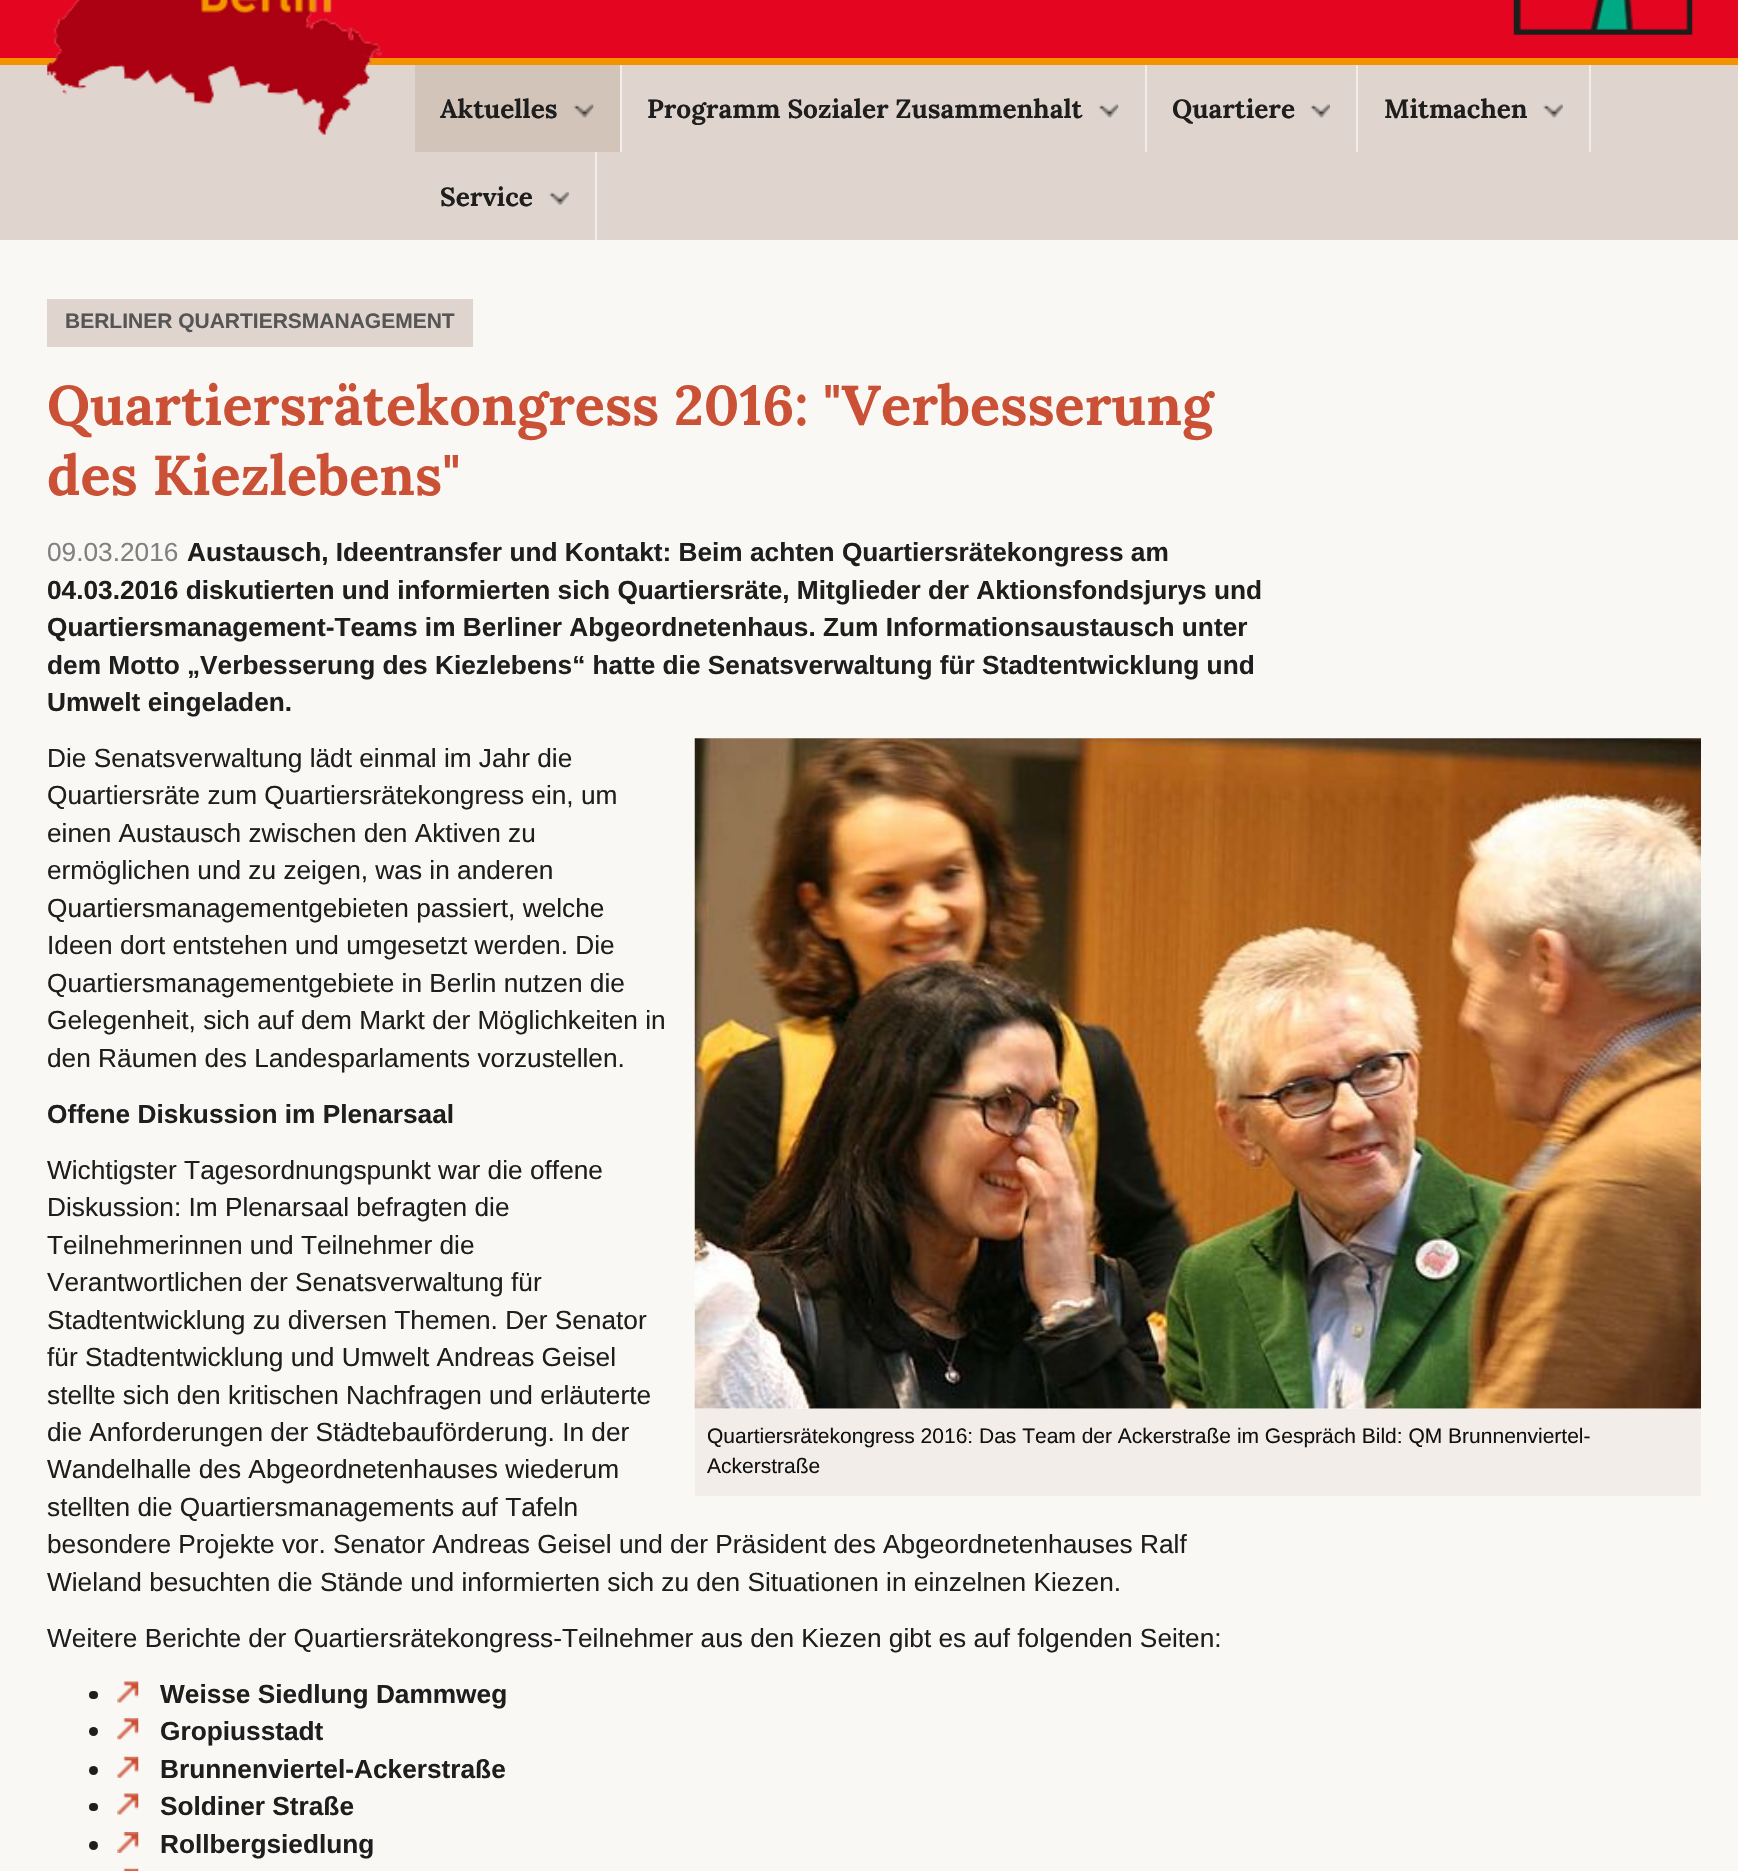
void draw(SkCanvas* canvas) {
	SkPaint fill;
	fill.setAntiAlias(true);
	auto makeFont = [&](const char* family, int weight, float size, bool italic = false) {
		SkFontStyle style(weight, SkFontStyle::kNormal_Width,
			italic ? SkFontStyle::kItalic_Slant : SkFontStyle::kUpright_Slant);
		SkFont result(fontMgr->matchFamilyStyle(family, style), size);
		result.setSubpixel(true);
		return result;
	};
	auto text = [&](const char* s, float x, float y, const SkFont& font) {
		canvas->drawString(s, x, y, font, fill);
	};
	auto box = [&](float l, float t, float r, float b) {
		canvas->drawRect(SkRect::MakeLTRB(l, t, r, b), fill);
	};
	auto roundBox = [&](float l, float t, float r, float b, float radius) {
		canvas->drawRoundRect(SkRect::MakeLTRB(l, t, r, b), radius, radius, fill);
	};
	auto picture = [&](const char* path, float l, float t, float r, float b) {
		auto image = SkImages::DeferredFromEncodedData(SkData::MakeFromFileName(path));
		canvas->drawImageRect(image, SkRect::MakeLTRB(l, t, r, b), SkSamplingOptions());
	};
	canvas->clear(0xFFFAF8F5);
	fill.setColor(0xFFE40521);
	box(0, 0, 1738, 58);
	fill.setColor(0xFFE0D5CE);
	box(0, 65, 1738, 240);
	fill.setColor(0xFFF39300);
	box(0, 58, 1738, 65);
	picture("image0.png", 47, 0, 382, 135);
	picture("image1.png", 1513, 0, 1693, 35);
	fill.setColor(0xFFF2EDE9);
	box(620, 65, 622, 152);
	fill.setColor(0xFFD3C4BA);
	box(415, 65, 620, 152);
	picture("image2.png", 573, 104, 594, 118);
	fill.setColor(0xFFF2EDE9);
	box(1145, 65, 1147, 152);
	picture("image3.png", 1098, 104, 1119, 118);
	box(1356, 65, 1358, 152);
	picture("image4.png", 1310, 104, 1330, 118);
	box(1589, 65, 1591, 152);
	picture("image5.png", 1543, 104, 1563, 118);
	box(595, 152, 597, 240);
	picture("image6.png", 549, 191, 569, 205);
	fill.setColor(0xFFE0D5CE);
	box(47, 299, 473, 347);
	fill.setColor(0xFF1E1E1E);
	roundBox(89, 1691, 98, 1699, 4);
	picture("image7.png", 117, 1681, 139, 1703);
	canvas->drawCircle(93.5f, 1731.5f, 4.5f, fill);
	picture("image8.png", 117, 1718, 139, 1740);
	canvas->drawCircle(93.5f, 1770.5f, 4.5f, fill);
	picture("image9.png", 117, 1756, 139, 1778);
	roundBox(89, 1803, 98, 1811, 4);
	picture("image7.png", 117, 1793, 139, 1815);
	canvas->drawCircle(93.5f, 1845.5f, 4.5f, fill);
	picture("image10.png", 117, 1832, 139, 1853);
	picture("image11.png", 123, 1868, 139, 1871);
	picture("image12.png", 694, 738, 1701, 1409);
	fill.setColor(0xFFF2EDE9);
	box(695, 1409, 1701, 1496);
	auto font1 = makeFont("Lora", 700, 26.25f);
	fill.setColor(0xFF1E1E1E);
	text("Aktuelles", 440, 118, font1);
	text("Programm Sozialer Zusammenhalt", 647, 118, font1);
	text("Quartiere", 1172, 118, font1);
	text("Mitmachen", 1384, 118, font1);
	text("Service", 440, 206, font1);
	auto font2 = makeFont("Liberation Sans", 700, 21);
	fill.setColor(0xFF555555);
	text("BERLINER QUARTIERSMANAGEMENT", 65, 328, font2);
	auto font3 = makeFont("Lora", 700, 56);
	fill.setColor(0xFFCA5136);
	text("Quartiersrätekongress 2016: \"Verbesserung", 47, 425, font3);
	text("des Kiezlebens\"", 47, 495, font3);
	auto font4 = makeFont("Liberation Sans", 400, 26.25f);
	fill.setColor(0xFF808080);
	text("09.03.2016", 47, 561, font4);
	auto font5 = makeFont("Liberation Sans", 700, 26.25f);
	fill.setColor(0xFF1E1E1E);
	text("Austausch, Ideentransfer und Kontakt: Beim achten Quartiersrätekongress am", 187, 561, font5);
	text("04.03.2016 diskutierten und informierten sich Quartiersräte, Mitglieder der Aktionsfondsjurys und", 47, 599, font5);
	text("Quartiersmanagement-Teams im Berliner Abgeordnetenhaus. Zum Informationsaustausch unter", 47, 636, font5);
	text("dem Motto „Verbesserung des Kiezlebens“ hatte die Senatsverwaltung für Stadtentwicklung und", 47, 674, font5);
	text("Umwelt eingeladen.", 47, 711, font5);
	text("Die Senatsverwaltung lädt einmal im Jahr die", 47, 767, font4);
	text("Quartiersräte zum Quartiersrätekongress ein, um", 47, 804, font4);
	text("einen Austausch zwischen den Aktiven zu", 47, 842, font4);
	text("ermöglichen und zu zeigen, was in anderen", 47, 879, font4);
	text("Quartiersmanagementgebieten passiert, welche", 47, 917, font4);
	text("Ideen dort entstehen und umgesetzt werden. Die", 47, 954, font4);
	text("Quartiersmanagementgebiete in Berlin nutzen die", 47, 992, font4);
	text("Gelegenheit, sich auf dem Markt der Möglichkeiten in", 47, 1029, font4);
	text("den Räumen des Landesparlaments vorzustellen.", 47, 1067, font4);
	text("Offene Diskussion im Plenarsaal", 47, 1123, font5);
	text("Wichtigster Tagesordnungspunkt war die offene", 47, 1179, font4);
	text("Diskussion: Im Plenarsaal befragten die", 47, 1216, font4);
	text("Teilnehmerinnen und Teilnehmer die", 47, 1254, font4);
	text("Verantwortlichen der Senatsverwaltung für", 47, 1291, font4);
	text("Stadtentwicklung zu diversen Themen. Der Senator", 47, 1329, font4);
	text("für Stadtentwicklung und Umwelt Andreas Geisel", 47, 1366, font4);
	text("stellte sich den kritischen Nachfragen und erläuterte", 47, 1404, font4);
	text("die Anforderungen der Städtebauförderung. In der", 47, 1441, font4);
	text("Wandelhalle des Abgeordnetenhauses wiederum", 47, 1478, font4);
	text("stellten die Quartiersmanagements auf Tafeln", 47, 1516, font4);
	text("besondere Projekte vor. Senator Andreas Geisel und der Präsident des Abgeordnetenhauses Ralf", 47, 1553, font4);
	text("Wieland besuchten die Stände und informierten sich zu den Situationen in einzelnen Kiezen.", 47, 1591, font4);
	text("Weitere Berichte der Quartiersrätekongress-Teilnehmer aus den Kiezen gibt es auf folgenden Seiten:", 47, 1647, font4);
	text("Weisse Siedlung Dammweg", 160, 1703, font5);
	text("Gropiusstadt", 160, 1740, font5);
	text("Brunnenviertel-Ackerstraße", 160, 1778, font5);
	text("Soldiner Straße", 160, 1815, font5);
	text("Rollbergsiedlung", 160, 1853, font5);
	auto font6 = makeFont("Liberation Sans", 400, 21);
	fill.setColor(0xFF111111);
	text("Quartiersrätekongress 2016: Das Team der Ackerstraße im Gespräch Bild: QM Brunnenviertel-", 707, 1443, font6);
	text("Ackerstraße", 707, 1473, font6);
}
